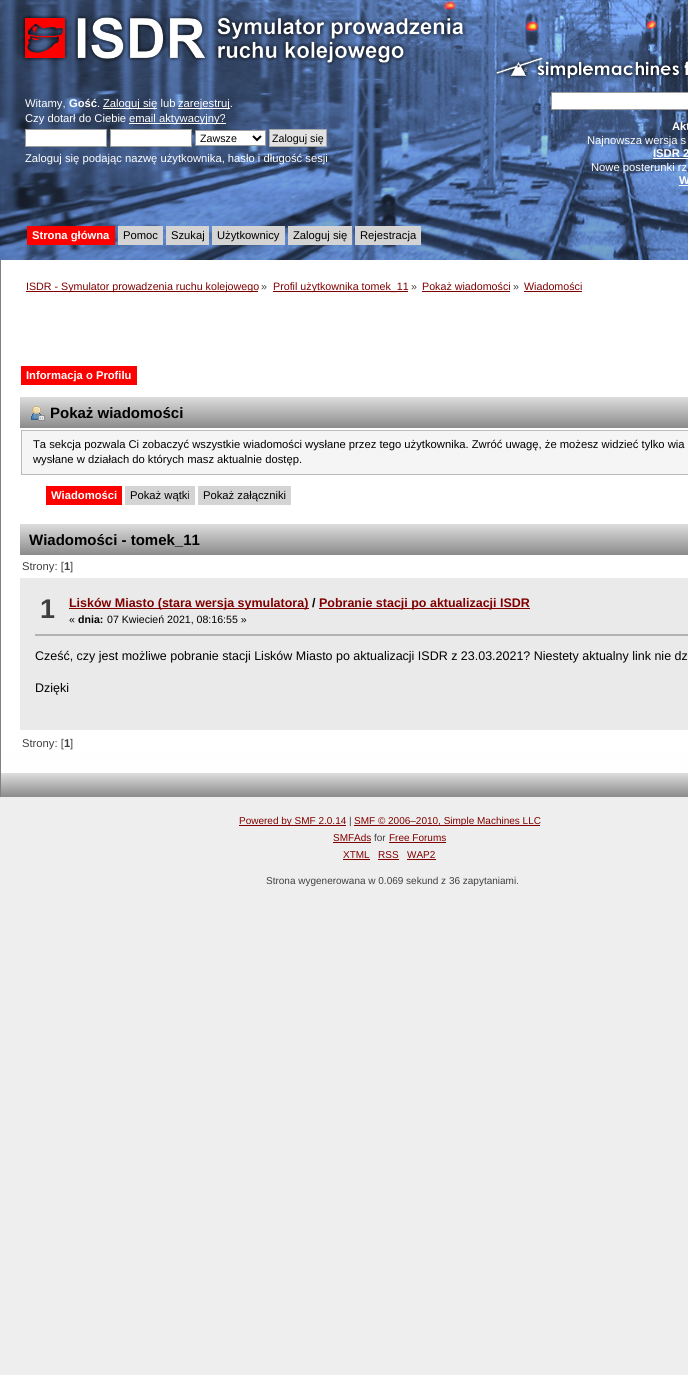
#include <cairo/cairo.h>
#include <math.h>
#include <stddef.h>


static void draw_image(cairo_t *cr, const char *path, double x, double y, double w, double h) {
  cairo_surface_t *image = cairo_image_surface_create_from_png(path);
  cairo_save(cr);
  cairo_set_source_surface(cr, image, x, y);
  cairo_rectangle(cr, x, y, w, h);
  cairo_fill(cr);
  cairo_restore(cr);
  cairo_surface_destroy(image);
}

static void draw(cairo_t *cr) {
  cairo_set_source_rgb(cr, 238 / 255.0, 238 / 255.0, 238 / 255.0);
  cairo_paint(cr);
  draw_image(cr, "images/1.png", 0, 0, 688, 260);
  draw_image(cr, "images/2.png", 22, 14, 444, 52);
  draw_image(cr, "images/3.png", 493, 54, 195, 28);
  cairo_set_source_rgb(cr, 1, 1, 1);
  cairo_rectangle(cr, 103, 108, 54, 1);
  cairo_fill(cr);
  cairo_rectangle(cr, 178, 108, 52, 1);
  cairo_fill(cr);
  cairo_rectangle(cr, 129, 123, 97, 1);
  cairo_fill(cr);
  cairo_rectangle(cr, 25.5, 129.5, 81, 17);
  cairo_fill_preserve(cr);
  cairo_set_source_rgb(cr, 157 / 255.0, 157 / 255.0, 157 / 255.0);
  cairo_set_line_width(cr, 1);
  cairo_stroke(cr);
  cairo_set_source_rgb(cr, 1, 1, 1);
  cairo_rectangle(cr, 110.5, 129.5, 81, 17);
  cairo_fill_preserve(cr);
  cairo_set_source_rgb(cr, 157 / 255.0, 157 / 255.0, 157 / 255.0);
  cairo_stroke(cr);
  cairo_set_source_rgb(cr, 1, 1, 1);
  cairo_rectangle(cr, 195.5, 130.5, 70, 15);
  cairo_fill_preserve(cr);
  cairo_set_source_rgb(cr, 157 / 255.0, 157 / 255.0, 157 / 255.0);
  cairo_stroke(cr);
  cairo_new_path(cr);
  cairo_move_to(cr, 253, 136);
  cairo_line_to(cr, 257, 140);
  cairo_line_to(cr, 261, 136);
  cairo_set_source_rgb(cr, 0, 0, 0);
  cairo_set_line_width(cr, 2);
  cairo_stroke(cr);
  cairo_set_source_rgb(cr, 226 / 255.0, 226 / 255.0, 226 / 255.0);
  cairo_rectangle(cr, 269.5, 129.5, 57, 17);
  cairo_fill_preserve(cr);
  cairo_set_source_rgb(cr, 170 / 255.0, 170 / 255.0, 170 / 255.0);
  cairo_set_line_width(cr, 1);
  cairo_stroke(cr);
  cairo_set_source_rgb(cr, 1, 1, 1);
  cairo_rectangle(cr, 551.5, 92.5, 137, 17);
  cairo_fill_preserve(cr);
  cairo_set_source_rgb(cr, 157 / 255.0, 157 / 255.0, 157 / 255.0);
  cairo_stroke(cr);
  cairo_set_source_rgb(cr, 1, 1, 1);
  cairo_rectangle(cr, 653, 158, 35, 1);
  cairo_fill(cr);
  cairo_rectangle(cr, 679, 185, 9, 1);
  cairo_fill(cr);
  cairo_set_source_rgb(cr, 1, 0, 0);
  cairo_rectangle(cr, 27, 226, 88, 19);
  cairo_fill(cr);
  cairo_set_source_rgb(cr, 212 / 255.0, 212 / 255.0, 212 / 255.0);
  cairo_rectangle(cr, 118, 226, 45, 19);
  cairo_fill(cr);
  cairo_rectangle(cr, 166, 226, 43, 19);
  cairo_fill(cr);
  cairo_rectangle(cr, 212, 226, 73, 19);
  cairo_fill(cr);
  cairo_rectangle(cr, 288, 226, 64, 19);
  cairo_fill(cr);
  cairo_rectangle(cr, 355, 226, 66, 19);
  cairo_fill(cr);
  cairo_set_source_rgb(cr, 1, 1, 1);
  cairo_rectangle(cr, 1, 260, 687, 493);
  cairo_fill(cr);
  cairo_set_source_rgb(cr, 128 / 255.0, 128 / 255.0, 128 / 255.0);
  cairo_rectangle(cr, 0, 260, 1, 493);
  cairo_fill(cr);
  cairo_set_source_rgb(cr, 128 / 255.0, 0, 0);
  cairo_rectangle(cr, 26, 291, 232, 1);
  cairo_fill(cr);
  cairo_rectangle(cr, 273, 291, 135, 1);
  cairo_fill(cr);
  cairo_rectangle(cr, 422, 291, 88, 1);
  cairo_fill(cr);
  cairo_rectangle(cr, 524, 291, 58, 1);
  cairo_fill(cr);
  cairo_set_source_rgb(cr, 1, 0, 0);
  cairo_rectangle(cr, 21, 366, 116, 19);
  cairo_fill(cr);
  draw_image(cr, "images/4.png", 20, 397, 668, 31);
  draw_image(cr, "images/5.png", 31, 406, 14, 15);
  cairo_set_source_rgb(cr, 245 / 255.0, 245 / 255.0, 245 / 255.0);
  cairo_rectangle(cr, 21.5, 430.5, 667, 44);
  cairo_fill_preserve(cr);
  cairo_set_source_rgb(cr, 187 / 255.0, 187 / 255.0, 187 / 255.0);
  cairo_stroke(cr);
  cairo_set_source_rgb(cr, 1, 0, 0);
  cairo_rectangle(cr, 46, 486, 76, 19);
  cairo_fill(cr);
  cairo_set_source_rgb(cr, 212 / 255.0, 212 / 255.0, 212 / 255.0);
  cairo_rectangle(cr, 125, 486, 70, 19);
  cairo_fill(cr);
  cairo_rectangle(cr, 198, 486, 93, 19);
  cairo_fill(cr);
  draw_image(cr, "images/4.png", 20, 524, 668, 31);
  cairo_set_source_rgb(cr, 234 / 255.0, 234 / 255.0, 234 / 255.0);
  cairo_rectangle(cr, 20, 578, 668, 152);
  cairo_fill(cr);
  cairo_set_source_rgb(cr, 128 / 255.0, 0, 0);
  cairo_rectangle(cr, 69, 608, 240, 1);
  cairo_fill(cr);
  cairo_rectangle(cr, 319, 608, 211, 1);
  cairo_fill(cr);
  cairo_set_source_rgb(cr, 179 / 255.0, 179 / 255.0, 179 / 255.0);
  cairo_rectangle(cr, 35, 634, 653, 2);
  cairo_fill(cr);
  draw_image(cr, "images/6.png", 0, 753, 688, 44);
  cairo_set_source_rgb(cr, 128 / 255.0, 0, 0);
  cairo_rectangle(cr, 239, 825, 107, 1);
  cairo_fill(cr);
  cairo_rectangle(cr, 354, 825, 186, 1);
  cairo_fill(cr);
  cairo_rectangle(cr, 333, 842, 38, 1);
  cairo_fill(cr);
  cairo_rectangle(cr, 389, 842, 57, 1);
  cairo_fill(cr);
  cairo_rectangle(cr, 343, 859, 27, 1);
  cairo_fill(cr);
  cairo_rectangle(cr, 378, 859, 21, 1);
  cairo_fill(cr);
  cairo_rectangle(cr, 407, 859, 29, 1);
  cairo_fill(cr);
  cairo_select_font_face(cr, "Liberation Sans", CAIRO_FONT_SLANT_NORMAL, CAIRO_FONT_WEIGHT_NORMAL);
  cairo_set_font_size(cr, 11.23);
  cairo_set_source_rgb(cr, 1, 1, 1);
  cairo_move_to(cr, 25, 107);
  cairo_show_text(cr, "Witamy,");
  cairo_select_font_face(cr, "Liberation Sans", CAIRO_FONT_SLANT_NORMAL, CAIRO_FONT_WEIGHT_BOLD);
  cairo_move_to(cr, 69, 107);
  cairo_show_text(cr, "Gość");
  cairo_select_font_face(cr, "Liberation Sans", CAIRO_FONT_SLANT_NORMAL, CAIRO_FONT_WEIGHT_NORMAL);
  cairo_move_to(cr, 97, 107);
  cairo_show_text(cr, ".");
  cairo_move_to(cr, 103, 107);
  cairo_show_text(cr, "Zaloguj się lub");
  cairo_move_to(cr, 178, 107);
  cairo_show_text(cr, "zarejestruj.");
  cairo_move_to(cr, 25, 122);
  cairo_show_text(cr, "Czy dotarł do Ciebie");
  cairo_move_to(cr, 129, 122);
  cairo_show_text(cr, "email aktywacyjny?");
  cairo_set_font_size(cr, 10.7);
  cairo_set_source_rgb(cr, 0, 0, 0);
  cairo_move_to(cr, 200, 142);
  cairo_show_text(cr, "Zawsze");
  cairo_move_to(cr, 272, 142);
  cairo_show_text(cr, "Zaloguj się");
  cairo_set_font_size(cr, 11.23);
  cairo_set_source_rgb(cr, 1, 1, 1);
  cairo_move_to(cr, 25, 162);
  cairo_show_text(cr, "Zaloguj się podając nazwę użytkownika, hasło i długość sesji");
  cairo_select_font_face(cr, "Liberation Sans", CAIRO_FONT_SLANT_NORMAL, CAIRO_FONT_WEIGHT_BOLD);
  cairo_move_to(cr, 672, 130);
  cairo_show_text(cr, "Akt");
  cairo_select_font_face(cr, "Liberation Sans", CAIRO_FONT_SLANT_NORMAL, CAIRO_FONT_WEIGHT_NORMAL);
  cairo_move_to(cr, 587, 144);
  cairo_show_text(cr, "Najnowsza wersja s");
  cairo_select_font_face(cr, "Liberation Sans", CAIRO_FONT_SLANT_NORMAL, CAIRO_FONT_WEIGHT_BOLD);
  cairo_move_to(cr, 653, 157);
  cairo_show_text(cr, "ISDR 2");
  cairo_select_font_face(cr, "Liberation Sans", CAIRO_FONT_SLANT_NORMAL, CAIRO_FONT_WEIGHT_NORMAL);
  cairo_move_to(cr, 591, 171);
  cairo_show_text(cr, "Nowe posterunki rz");
  cairo_select_font_face(cr, "Liberation Sans", CAIRO_FONT_SLANT_NORMAL, CAIRO_FONT_WEIGHT_BOLD);
  cairo_move_to(cr, 679, 184);
  cairo_show_text(cr, "W");
  cairo_move_to(cr, 32, 239);
  cairo_show_text(cr, "Strona główna");
  cairo_select_font_face(cr, "Liberation Sans", CAIRO_FONT_SLANT_NORMAL, CAIRO_FONT_WEIGHT_NORMAL);
  cairo_set_source_rgb(cr, 0, 0, 0);
  cairo_move_to(cr, 123, 239);
  cairo_show_text(cr, "Pomoc");
  cairo_move_to(cr, 171, 239);
  cairo_show_text(cr, "Szukaj");
  cairo_move_to(cr, 217, 239);
  cairo_show_text(cr, "Użytkownicy");
  cairo_move_to(cr, 293, 239);
  cairo_show_text(cr, "Zaloguj się");
  cairo_move_to(cr, 360, 239);
  cairo_show_text(cr, "Rejestracja");
  cairo_set_font_size(cr, 10.7);
  cairo_set_source_rgb(cr, 128 / 255.0, 0, 0);
  cairo_move_to(cr, 26, 290);
  cairo_show_text(cr, "ISDR - Symulator prowadzenia ruchu kolejowego");
  cairo_set_source_rgb(cr, 63 / 255.0, 63 / 255.0, 63 / 255.0);
  cairo_move_to(cr, 261, 290);
  cairo_show_text(cr, "»");
  cairo_set_source_rgb(cr, 128 / 255.0, 0, 0);
  cairo_move_to(cr, 273, 290);
  cairo_show_text(cr, "Profil użytkownika tomek_11");
  cairo_set_source_rgb(cr, 63 / 255.0, 63 / 255.0, 63 / 255.0);
  cairo_move_to(cr, 411, 290);
  cairo_show_text(cr, "»");
  cairo_set_source_rgb(cr, 128 / 255.0, 0, 0);
  cairo_move_to(cr, 422, 290);
  cairo_show_text(cr, "Pokaż wiadomości");
  cairo_set_source_rgb(cr, 63 / 255.0, 63 / 255.0, 63 / 255.0);
  cairo_move_to(cr, 513, 290);
  cairo_show_text(cr, "»");
  cairo_set_source_rgb(cr, 128 / 255.0, 0, 0);
  cairo_move_to(cr, 524, 290);
  cairo_show_text(cr, "Wiadomości");
  cairo_select_font_face(cr, "Liberation Sans", CAIRO_FONT_SLANT_NORMAL, CAIRO_FONT_WEIGHT_BOLD);
  cairo_set_font_size(cr, 11.23);
  cairo_set_source_rgb(cr, 1, 1, 1);
  cairo_move_to(cr, 26, 379);
  cairo_show_text(cr, "Informacja o Profilu");
  cairo_set_font_size(cr, 15);
  cairo_set_source_rgb(cr, 0, 0, 0);
  cairo_move_to(cr, 50, 418);
  cairo_show_text(cr, "Pokaż wiadomości");
  cairo_select_font_face(cr, "Liberation Sans", CAIRO_FONT_SLANT_NORMAL, CAIRO_FONT_WEIGHT_NORMAL);
  cairo_set_font_size(cr, 11.23);
  cairo_move_to(cr, 33, 448);
  cairo_show_text(cr, "Ta sekcja pozwala Ci zobaczyć wszystkie wiadomości wysłane przez tego użytkownika. Zwróć uwagę, że możesz widzieć tylko wia");
  cairo_move_to(cr, 33, 463);
  cairo_show_text(cr, "wysłane w działach do których masz aktualnie dostęp.");
  cairo_select_font_face(cr, "Liberation Sans", CAIRO_FONT_SLANT_NORMAL, CAIRO_FONT_WEIGHT_BOLD);
  cairo_set_source_rgb(cr, 1, 1, 1);
  cairo_move_to(cr, 51, 499);
  cairo_show_text(cr, "Wiadomości");
  cairo_select_font_face(cr, "Liberation Sans", CAIRO_FONT_SLANT_NORMAL, CAIRO_FONT_WEIGHT_NORMAL);
  cairo_set_source_rgb(cr, 0, 0, 0);
  cairo_move_to(cr, 130, 499);
  cairo_show_text(cr, "Pokaż wątki");
  cairo_move_to(cr, 203, 499);
  cairo_show_text(cr, "Pokaż załączniki");
  cairo_select_font_face(cr, "Liberation Sans", CAIRO_FONT_SLANT_NORMAL, CAIRO_FONT_WEIGHT_BOLD);
  cairo_set_font_size(cr, 15);
  cairo_move_to(cr, 29, 545);
  cairo_show_text(cr, "Wiadomości - tomek_11");
  cairo_select_font_face(cr, "Liberation Sans", CAIRO_FONT_SLANT_NORMAL, CAIRO_FONT_WEIGHT_NORMAL);
  cairo_set_font_size(cr, 11.23);
  cairo_set_source_rgb(cr, 63 / 255.0, 63 / 255.0, 63 / 255.0);
  cairo_move_to(cr, 22, 570);
  cairo_show_text(cr, "Strony: [");
  cairo_select_font_face(cr, "Liberation Sans", CAIRO_FONT_SLANT_NORMAL, CAIRO_FONT_WEIGHT_BOLD);
  cairo_move_to(cr, 64, 570);
  cairo_show_text(cr, "1");
  cairo_select_font_face(cr, "Liberation Sans", CAIRO_FONT_SLANT_NORMAL, CAIRO_FONT_WEIGHT_NORMAL);
  cairo_move_to(cr, 70, 570);
  cairo_show_text(cr, "]");
  cairo_select_font_face(cr, "Liberation Sans", CAIRO_FONT_SLANT_NORMAL, CAIRO_FONT_WEIGHT_BOLD);
  cairo_set_font_size(cr, 27);
  cairo_move_to(cr, 40, 618);
  cairo_show_text(cr, "1");
  cairo_set_font_size(cr, 12.48);
  cairo_set_source_rgb(cr, 128 / 255.0, 0, 0);
  cairo_move_to(cr, 69, 607);
  cairo_show_text(cr, "Lisków Miasto (stara wersja symulatora)");
  cairo_set_source_rgb(cr, 0, 0, 0);
  cairo_move_to(cr, 312, 607);
  cairo_show_text(cr, "/");
  cairo_set_source_rgb(cr, 128 / 255.0, 0, 0);
  cairo_move_to(cr, 319, 607);
  cairo_show_text(cr, "Pobranie stacji po aktualizacji ISDR");
  cairo_select_font_face(cr, "Liberation Sans", CAIRO_FONT_SLANT_NORMAL, CAIRO_FONT_WEIGHT_NORMAL);
  cairo_set_font_size(cr, 10.6);
  cairo_set_source_rgb(cr, 0, 0, 0);
  cairo_move_to(cr, 69, 623);
  cairo_show_text(cr, "«");
  cairo_select_font_face(cr, "Liberation Sans", CAIRO_FONT_SLANT_NORMAL, CAIRO_FONT_WEIGHT_BOLD);
  cairo_move_to(cr, 78, 623);
  cairo_show_text(cr, "dnia:");
  cairo_select_font_face(cr, "Liberation Sans", CAIRO_FONT_SLANT_NORMAL, CAIRO_FONT_WEIGHT_NORMAL);
  cairo_move_to(cr, 107, 623);
  cairo_show_text(cr, "07 Kwiecień 2021, 08:16:55 »");
  cairo_set_font_size(cr, 12.48);
  cairo_move_to(cr, 35, 660);
  cairo_show_text(cr, "Cześć, czy jest możliwe pobranie stacji Lisków Miasto po aktualizacji ISDR z 23.03.2021? Niestety aktualny link nie dz");
  cairo_move_to(cr, 35, 692);
  cairo_show_text(cr, "Dzięki");
  cairo_set_font_size(cr, 11.23);
  cairo_set_source_rgb(cr, 63 / 255.0, 63 / 255.0, 63 / 255.0);
  cairo_move_to(cr, 22, 747);
  cairo_show_text(cr, "Strony: [");
  cairo_select_font_face(cr, "Liberation Sans", CAIRO_FONT_SLANT_NORMAL, CAIRO_FONT_WEIGHT_BOLD);
  cairo_move_to(cr, 64, 747);
  cairo_show_text(cr, "1");
  cairo_select_font_face(cr, "Liberation Sans", CAIRO_FONT_SLANT_NORMAL, CAIRO_FONT_WEIGHT_NORMAL);
  cairo_move_to(cr, 70, 747);
  cairo_show_text(cr, "]");
  cairo_set_font_size(cr, 10);
  cairo_set_source_rgb(cr, 128 / 255.0, 0, 0);
  cairo_move_to(cr, 239, 824);
  cairo_show_text(cr, "Powered by SMF 2.0.14");
  cairo_set_source_rgb(cr, 63 / 255.0, 63 / 255.0, 63 / 255.0);
  cairo_move_to(cr, 349, 824);
  cairo_show_text(cr, "|");
  cairo_set_source_rgb(cr, 128 / 255.0, 0, 0);
  cairo_move_to(cr, 354, 824);
  cairo_show_text(cr, "SMF © 2006–2010, Simple Machines LLC");
  cairo_move_to(cr, 333, 841);
  cairo_show_text(cr, "SMFAds");
  cairo_set_source_rgb(cr, 63 / 255.0, 63 / 255.0, 63 / 255.0);
  cairo_move_to(cr, 374, 841);
  cairo_show_text(cr, "for");
  cairo_set_source_rgb(cr, 128 / 255.0, 0, 0);
  cairo_move_to(cr, 389, 841);
  cairo_show_text(cr, "Free Forums");
  cairo_move_to(cr, 343, 858);
  cairo_show_text(cr, "XTML");
  cairo_move_to(cr, 378, 858);
  cairo_show_text(cr, "RSS");
  cairo_move_to(cr, 407, 858);
  cairo_show_text(cr, "WAP2");
  cairo_set_source_rgb(cr, 63 / 255.0, 63 / 255.0, 63 / 255.0);
  cairo_move_to(cr, 266, 884);
  cairo_show_text(cr, "Strona wygenerowana w 0.069 sekund z 36 zapytaniami.");
}

int main(void) {
  cairo_surface_t *surface = cairo_image_surface_create(CAIRO_FORMAT_RGB24, 688, 1375);
  cairo_t *cr = cairo_create(surface);
  cairo_font_options_t *options = cairo_font_options_create();
  cairo_font_options_set_hint_metrics(options, CAIRO_HINT_METRICS_OFF);
  cairo_font_options_set_hint_style(options, CAIRO_HINT_STYLE_NONE);
  cairo_set_font_options(cr, options);
  cairo_set_miter_limit(cr, 4);
  draw(cr);
  cairo_surface_write_to_png(surface, "out.png");
  cairo_font_options_destroy(options);
  cairo_destroy(cr);
  cairo_surface_destroy(surface);
  return 0;
}
